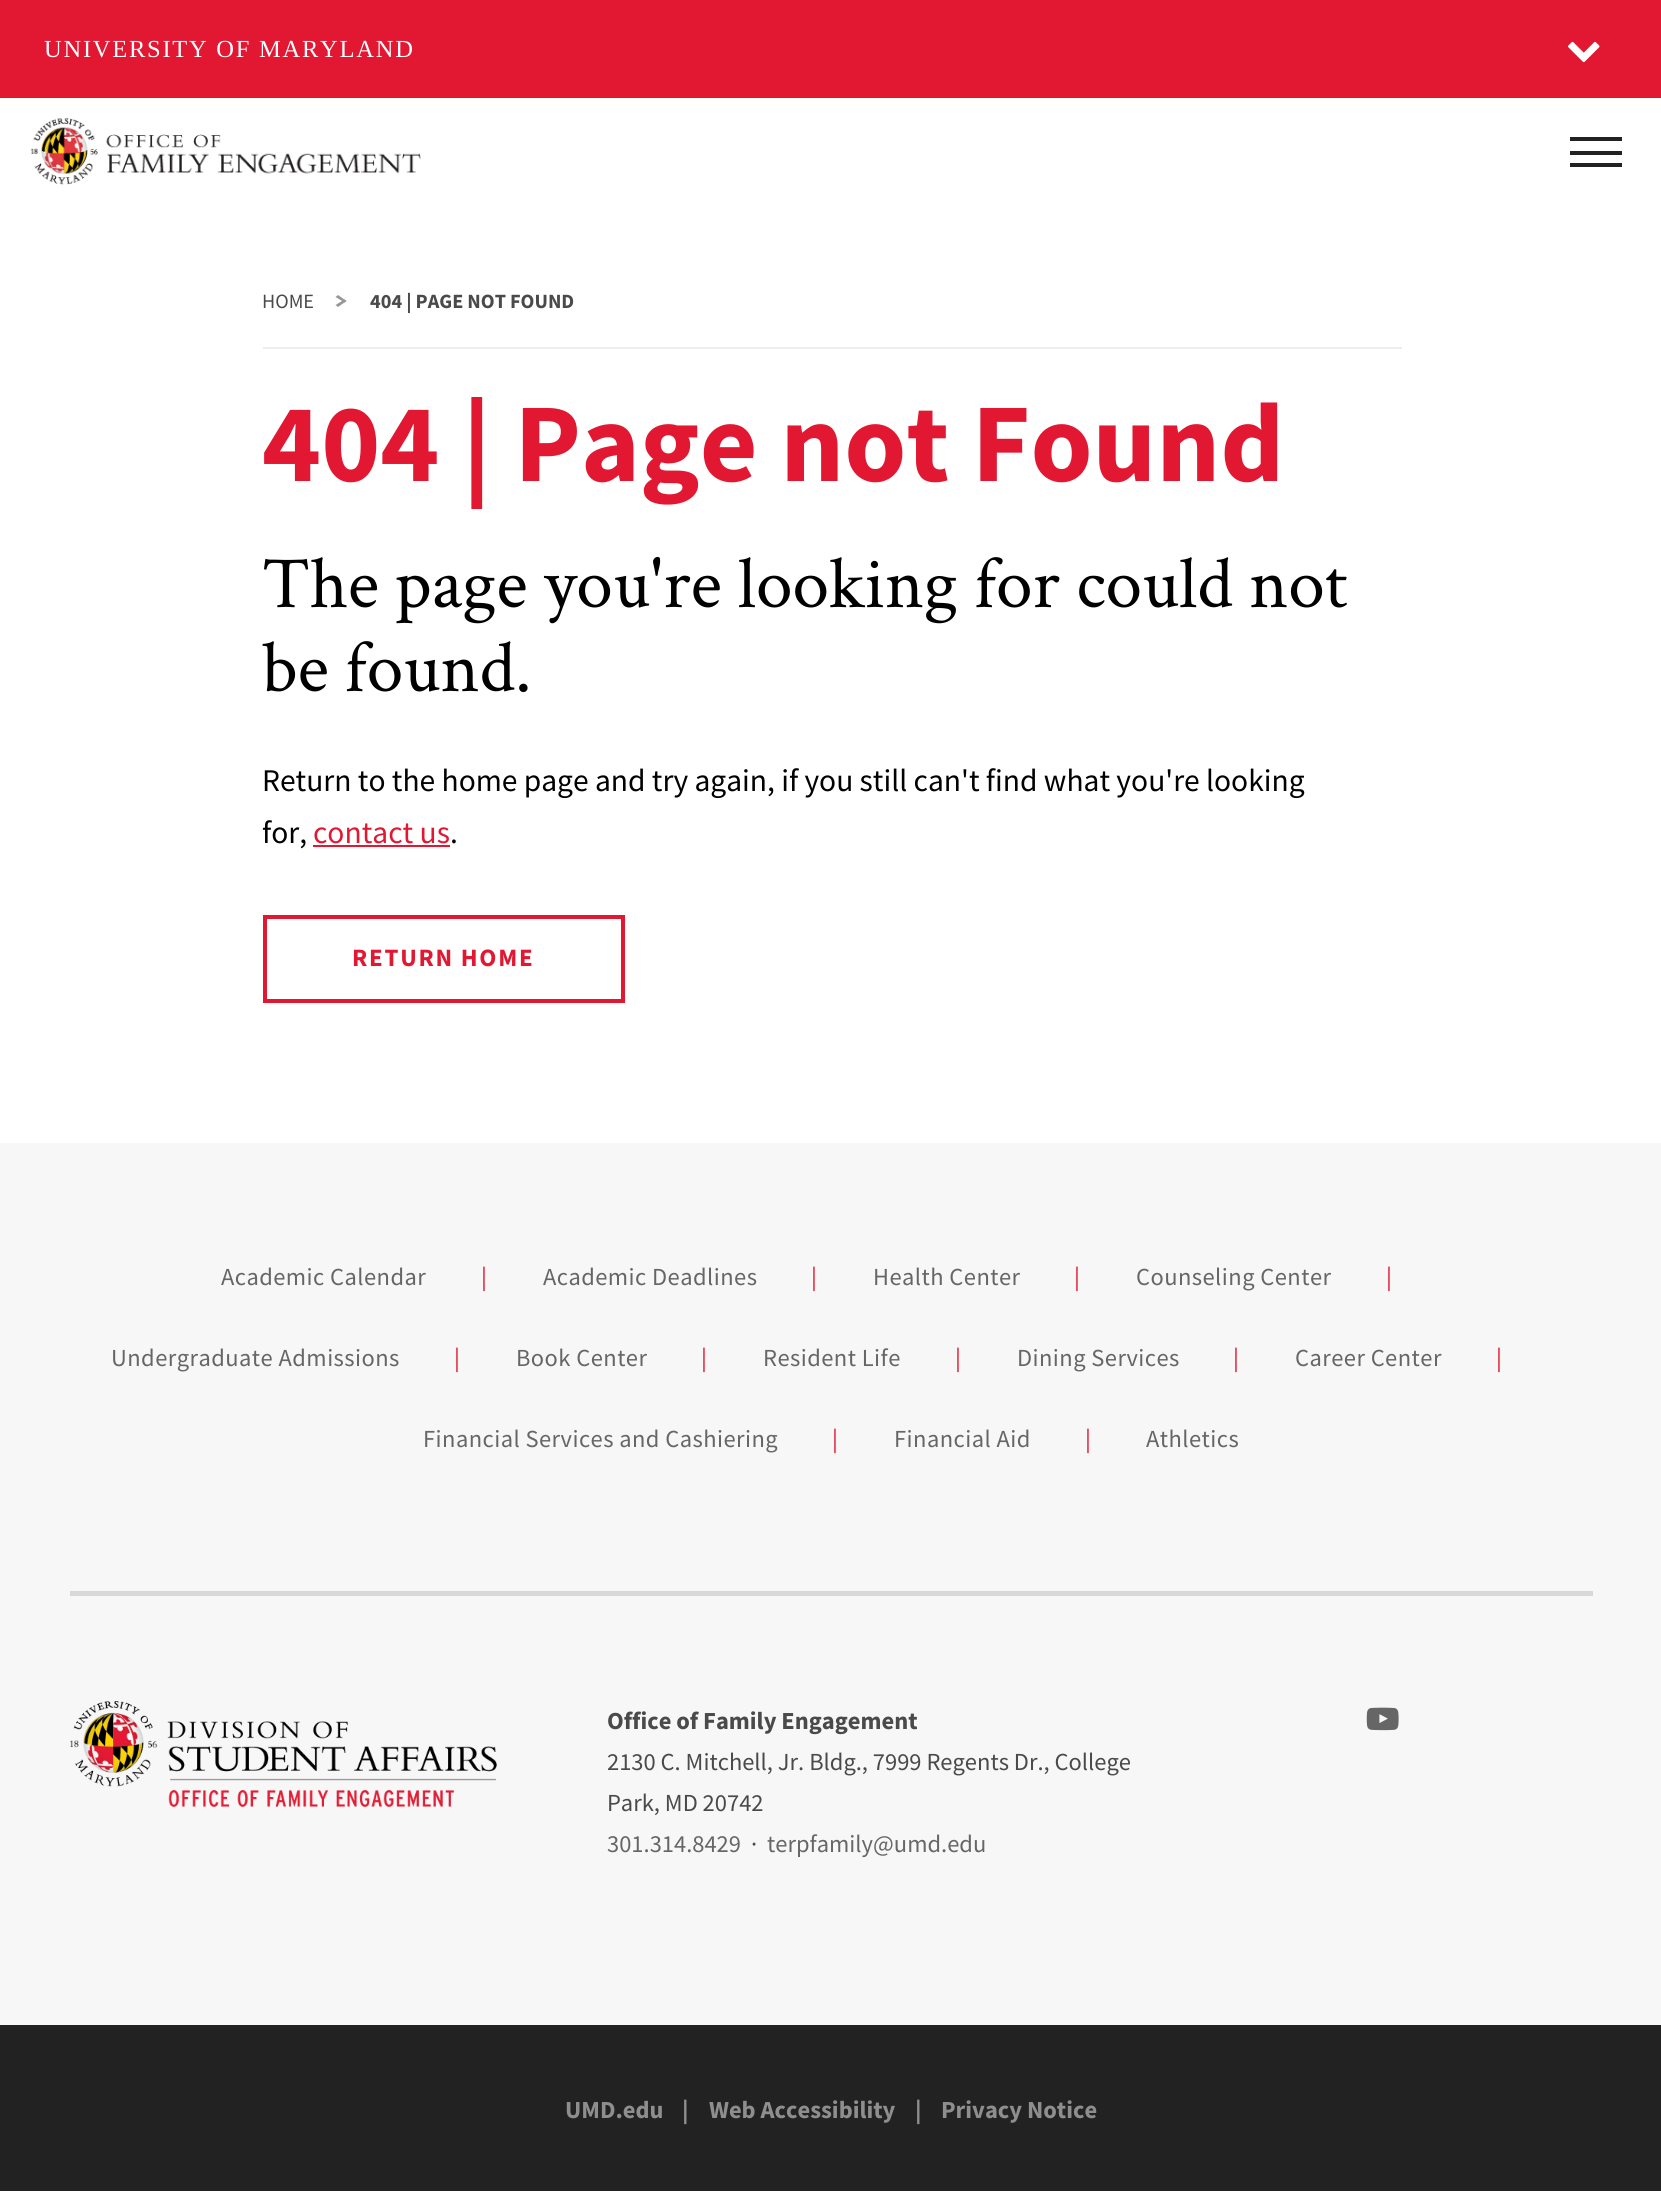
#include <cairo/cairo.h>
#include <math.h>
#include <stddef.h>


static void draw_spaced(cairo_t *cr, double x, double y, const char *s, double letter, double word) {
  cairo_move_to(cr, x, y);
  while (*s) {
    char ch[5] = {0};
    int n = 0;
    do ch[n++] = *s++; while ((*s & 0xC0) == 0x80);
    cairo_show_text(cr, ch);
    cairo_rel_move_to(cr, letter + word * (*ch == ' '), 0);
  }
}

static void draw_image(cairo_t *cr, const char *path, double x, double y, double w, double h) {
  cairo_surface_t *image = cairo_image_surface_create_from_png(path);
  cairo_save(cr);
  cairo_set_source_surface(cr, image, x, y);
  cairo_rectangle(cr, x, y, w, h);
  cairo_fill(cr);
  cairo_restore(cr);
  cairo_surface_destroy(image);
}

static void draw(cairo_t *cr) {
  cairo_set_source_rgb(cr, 1, 1, 1);
  cairo_paint(cr);
  cairo_set_source_rgb(cr, 226 / 255.0, 24 / 255.0, 51 / 255.0);
  cairo_rectangle(cr, 0, 0, 1661, 98);
  cairo_fill(cr);
  draw_image(cr, "images/1.png", 1568, 41, 32, 22);
  draw_image(cr, "images/2.png", 30, 118, 391, 67);
  cairo_set_source_rgb(cr, 34 / 255.0, 34 / 255.0, 34 / 255.0);
  cairo_rectangle(cr, 1570, 137, 52, 4);
  cairo_fill(cr);
  cairo_rectangle(cr, 1570, 151, 52, 4);
  cairo_fill(cr);
  cairo_rectangle(cr, 1570, 163, 52, 4);
  cairo_fill(cr);
  cairo_set_source_rgb(cr, 237 / 255.0, 237 / 255.0, 237 / 255.0);
  cairo_rectangle(cr, 263, 347, 1139, 2);
  cairo_fill(cr);
  cairo_set_source_rgb(cr, 151 / 255.0, 151 / 255.0, 151 / 255.0);
  cairo_new_path(cr);
  cairo_move_to(cr, 335.5, 297);
  cairo_line_to(cr, 338, 295);
  cairo_line_to(cr, 346.5, 301);
  cairo_line_to(cr, 344.5, 302.5);
  cairo_close_path(cr);
  cairo_fill(cr);
  cairo_new_path(cr);
  cairo_move_to(cr, 335.5, 305);
  cairo_line_to(cr, 344.5, 299.5);
  cairo_line_to(cr, 346.5, 301);
  cairo_line_to(cr, 338, 307);
  cairo_close_path(cr);
  cairo_fill(cr);
  cairo_set_source_rgb(cr, 226 / 255.0, 24 / 255.0, 51 / 255.0);
  cairo_rectangle(cr, 313, 845, 137, 2);
  cairo_fill(cr);
  cairo_rectangle(cr, 265, 917, 358, 84);
  cairo_set_line_width(cr, 4);
  cairo_stroke(cr);
  cairo_set_source_rgb(cr, 247 / 255.0, 247 / 255.0, 247 / 255.0);
  cairo_rectangle(cr, 0, 1143, 1661, 882);
  cairo_fill(cr);
  cairo_set_source_rgb(cr, 216 / 255.0, 216 / 255.0, 216 / 255.0);
  cairo_rectangle(cr, 70, 1591, 1523, 5);
  cairo_fill(cr);
  draw_image(cr, "images/3.png", 70, 1701, 427, 106);
  draw_image(cr, "images/4.png", 1366, 1707, 33, 24);
  cairo_set_source_rgb(cr, 34 / 255.0, 34 / 255.0, 34 / 255.0);
  cairo_rectangle(cr, 0, 2025, 1661, 166);
  cairo_fill(cr);
  cairo_select_font_face(cr, "Liberation Serif", CAIRO_FONT_SLANT_NORMAL, CAIRO_FONT_WEIGHT_NORMAL);
  cairo_set_font_size(cr, 24.5);
  cairo_set_source_rgb(cr, 1, 1, 1);
  draw_spaced(cr, 44, 57, "UNIVERSITY OF MARYLAND", 1.75, 0);
  cairo_select_font_face(cr, "Source Sans Pro", CAIRO_FONT_SLANT_NORMAL, CAIRO_FONT_WEIGHT_NORMAL);
  cairo_set_font_size(cr, 20.25);
  cairo_set_source_rgb(cr, 74 / 255.0, 74 / 255.0, 74 / 255.0);
  cairo_move_to(cr, 262, 308);
  cairo_show_text(cr, "HOME");
  cairo_select_font_face(cr, "Source Sans Pro", CAIRO_FONT_SLANT_NORMAL, CAIRO_FONT_WEIGHT_BOLD);
  cairo_move_to(cr, 370, 308);
  cairo_show_text(cr, "404 | PAGE NOT FOUND");
  cairo_set_font_size(cr, 112);
  cairo_set_source_rgb(cr, 226 / 255.0, 24 / 255.0, 51 / 255.0);
  cairo_move_to(cr, 262, 481);
  cairo_show_text(cr, "404 | Page not Found");
  cairo_select_font_face(cr, "Crimson Text", CAIRO_FONT_SLANT_NORMAL, CAIRO_FONT_WEIGHT_NORMAL);
  cairo_set_font_size(cr, 73.5);
  cairo_set_source_rgb(cr, 0, 0, 0);
  cairo_move_to(cr, 262, 607);
  cairo_show_text(cr, "The page you're looking for could not");
  cairo_move_to(cr, 262, 691);
  cairo_show_text(cr, "be found.");
  cairo_select_font_face(cr, "Source Sans Pro", CAIRO_FONT_SLANT_NORMAL, CAIRO_FONT_WEIGHT_NORMAL);
  cairo_set_font_size(cr, 31.5);
  cairo_move_to(cr, 262, 791);
  cairo_show_text(cr, "Return to the home page and try again, if you still can't find what you're looking");
  cairo_move_to(cr, 262, 843);
  cairo_show_text(cr, "for,");
  cairo_set_source_rgb(cr, 226 / 255.0, 24 / 255.0, 51 / 255.0);
  cairo_move_to(cr, 313, 843);
  cairo_show_text(cr, "contact us");
  cairo_set_source_rgb(cr, 0, 0, 0);
  cairo_move_to(cr, 450, 843);
  cairo_show_text(cr, ".");
  cairo_select_font_face(cr, "Source Sans Pro", CAIRO_FONT_SLANT_NORMAL, CAIRO_FONT_WEIGHT_BOLD);
  cairo_set_font_size(cr, 25);
  cairo_set_source_rgb(cr, 226 / 255.0, 24 / 255.0, 51 / 255.0);
  draw_spaced(cr, 352, 966, "RETURN HOME", 1.75, 0);
  cairo_select_font_face(cr, "Source Sans Pro", CAIRO_FONT_SLANT_NORMAL, CAIRO_FONT_WEIGHT_NORMAL);
  cairo_set_font_size(cr, 24.5);
  cairo_set_source_rgb(cr, 102 / 255.0, 102 / 255.0, 102 / 255.0);
  draw_spaced(cr, 221, 1285, "Academic Calendar", 0.45, 0);
  cairo_set_source_rgb(cr, 226 / 255.0, 24 / 255.0, 51 / 255.0);
  draw_spaced(cr, 481, 1285, "|", 0.45, 0);
  cairo_set_source_rgb(cr, 102 / 255.0, 102 / 255.0, 102 / 255.0);
  draw_spaced(cr, 543, 1285, "Academic Deadlines", 0.45, 0);
  cairo_set_source_rgb(cr, 226 / 255.0, 24 / 255.0, 51 / 255.0);
  draw_spaced(cr, 811, 1285, "|", 0.45, 0);
  cairo_set_source_rgb(cr, 102 / 255.0, 102 / 255.0, 102 / 255.0);
  draw_spaced(cr, 873, 1285, "Health Center", 0.45, 0);
  cairo_set_source_rgb(cr, 226 / 255.0, 24 / 255.0, 51 / 255.0);
  draw_spaced(cr, 1074, 1285, "|", 0.45, 0);
  cairo_set_source_rgb(cr, 102 / 255.0, 102 / 255.0, 102 / 255.0);
  draw_spaced(cr, 1136, 1285, "Counseling Center", 0.45, 0);
  cairo_set_source_rgb(cr, 226 / 255.0, 24 / 255.0, 51 / 255.0);
  draw_spaced(cr, 1386, 1285, "|", 0.45, 0);
  cairo_set_source_rgb(cr, 102 / 255.0, 102 / 255.0, 102 / 255.0);
  draw_spaced(cr, 111, 1366, "Undergraduate Admissions", 0.45, 0);
  cairo_set_source_rgb(cr, 226 / 255.0, 24 / 255.0, 51 / 255.0);
  draw_spaced(cr, 454, 1366, "|", 0.45, 0);
  cairo_set_source_rgb(cr, 102 / 255.0, 102 / 255.0, 102 / 255.0);
  draw_spaced(cr, 516, 1366, "Book Center", 0.45, 0);
  cairo_set_source_rgb(cr, 226 / 255.0, 24 / 255.0, 51 / 255.0);
  draw_spaced(cr, 701, 1366, "|", 0.45, 0);
  cairo_set_source_rgb(cr, 102 / 255.0, 102 / 255.0, 102 / 255.0);
  draw_spaced(cr, 763, 1366, "Resident Life", 0.45, 0);
  cairo_set_source_rgb(cr, 226 / 255.0, 24 / 255.0, 51 / 255.0);
  draw_spaced(cr, 955, 1366, "|", 0.45, 0);
  cairo_set_source_rgb(cr, 102 / 255.0, 102 / 255.0, 102 / 255.0);
  draw_spaced(cr, 1017, 1366, "Dining Services", 0.45, 0);
  cairo_set_source_rgb(cr, 226 / 255.0, 24 / 255.0, 51 / 255.0);
  draw_spaced(cr, 1233, 1366, "|", 0.45, 0);
  cairo_set_source_rgb(cr, 102 / 255.0, 102 / 255.0, 102 / 255.0);
  draw_spaced(cr, 1295, 1366, "Career Center", 0.45, 0);
  cairo_set_source_rgb(cr, 226 / 255.0, 24 / 255.0, 51 / 255.0);
  draw_spaced(cr, 1496, 1366, "|", 0.45, 0);
  cairo_set_source_rgb(cr, 102 / 255.0, 102 / 255.0, 102 / 255.0);
  draw_spaced(cr, 423, 1447, "Financial Services and Cashiering", 0.45, 0);
  cairo_set_source_rgb(cr, 226 / 255.0, 24 / 255.0, 51 / 255.0);
  draw_spaced(cr, 832, 1447, "|", 0.45, 0);
  cairo_set_source_rgb(cr, 102 / 255.0, 102 / 255.0, 102 / 255.0);
  draw_spaced(cr, 894, 1447, "Financial Aid", 0.45, 0);
  cairo_set_source_rgb(cr, 226 / 255.0, 24 / 255.0, 51 / 255.0);
  draw_spaced(cr, 1085, 1447, "|", 0.45, 0);
  cairo_set_source_rgb(cr, 102 / 255.0, 102 / 255.0, 102 / 255.0);
  draw_spaced(cr, 1146, 1447, "Athletics", 0.45, 0);
  cairo_select_font_face(cr, "Source Sans Pro", CAIRO_FONT_SLANT_NORMAL, CAIRO_FONT_WEIGHT_BOLD);
  cairo_set_source_rgb(cr, 74 / 255.0, 74 / 255.0, 74 / 255.0);
  cairo_move_to(cr, 607, 1729);
  cairo_show_text(cr, "Office of Family Engagement");
  cairo_select_font_face(cr, "Source Sans Pro", CAIRO_FONT_SLANT_NORMAL, CAIRO_FONT_WEIGHT_NORMAL);
  cairo_move_to(cr, 607, 1770);
  cairo_show_text(cr, "2130 C. Mitchell, Jr. Bldg., 7999 Regents Dr., College");
  cairo_move_to(cr, 607, 1811);
  cairo_show_text(cr, "Park, MD 20742");
  cairo_set_source_rgb(cr, 102 / 255.0, 102 / 255.0, 102 / 255.0);
  cairo_move_to(cr, 607, 1852);
  cairo_show_text(cr, "301.314.8429");
  cairo_set_source_rgb(cr, 74 / 255.0, 74 / 255.0, 74 / 255.0);
  cairo_move_to(cr, 751, 1852);
  cairo_show_text(cr, "·");
  cairo_set_source_rgb(cr, 102 / 255.0, 102 / 255.0, 102 / 255.0);
  cairo_move_to(cr, 767, 1852);
  cairo_show_text(cr, "terpfamily@umd.edu");
  cairo_select_font_face(cr, "Source Sans Pro", CAIRO_FONT_SLANT_NORMAL, CAIRO_FONT_WEIGHT_BOLD);
  cairo_set_source_rgb(cr, 142 / 255.0, 142 / 255.0, 142 / 255.0);
  cairo_move_to(cr, 565, 2118);
  cairo_show_text(cr, "UMD.edu");
  cairo_move_to(cr, 682, 2118);
  cairo_show_text(cr, "|");
  cairo_move_to(cr, 709, 2118);
  cairo_show_text(cr, "Web Accessibility");
  cairo_move_to(cr, 915, 2118);
  cairo_show_text(cr, "|");
  cairo_move_to(cr, 941, 2118);
  cairo_show_text(cr, "Privacy Notice");
}

int main(void) {
  cairo_surface_t *surface = cairo_image_surface_create(CAIRO_FORMAT_RGB24, 1661, 2203);
  cairo_t *cr = cairo_create(surface);
  cairo_font_options_t *options = cairo_font_options_create();
  cairo_font_options_set_hint_metrics(options, CAIRO_HINT_METRICS_OFF);
  cairo_font_options_set_hint_style(options, CAIRO_HINT_STYLE_NONE);
  cairo_set_font_options(cr, options);
  cairo_set_miter_limit(cr, 4);
  draw(cr);
  cairo_surface_write_to_png(surface, "out.png");
  cairo_font_options_destroy(options);
  cairo_destroy(cr);
  cairo_surface_destroy(surface);
  return 0;
}
